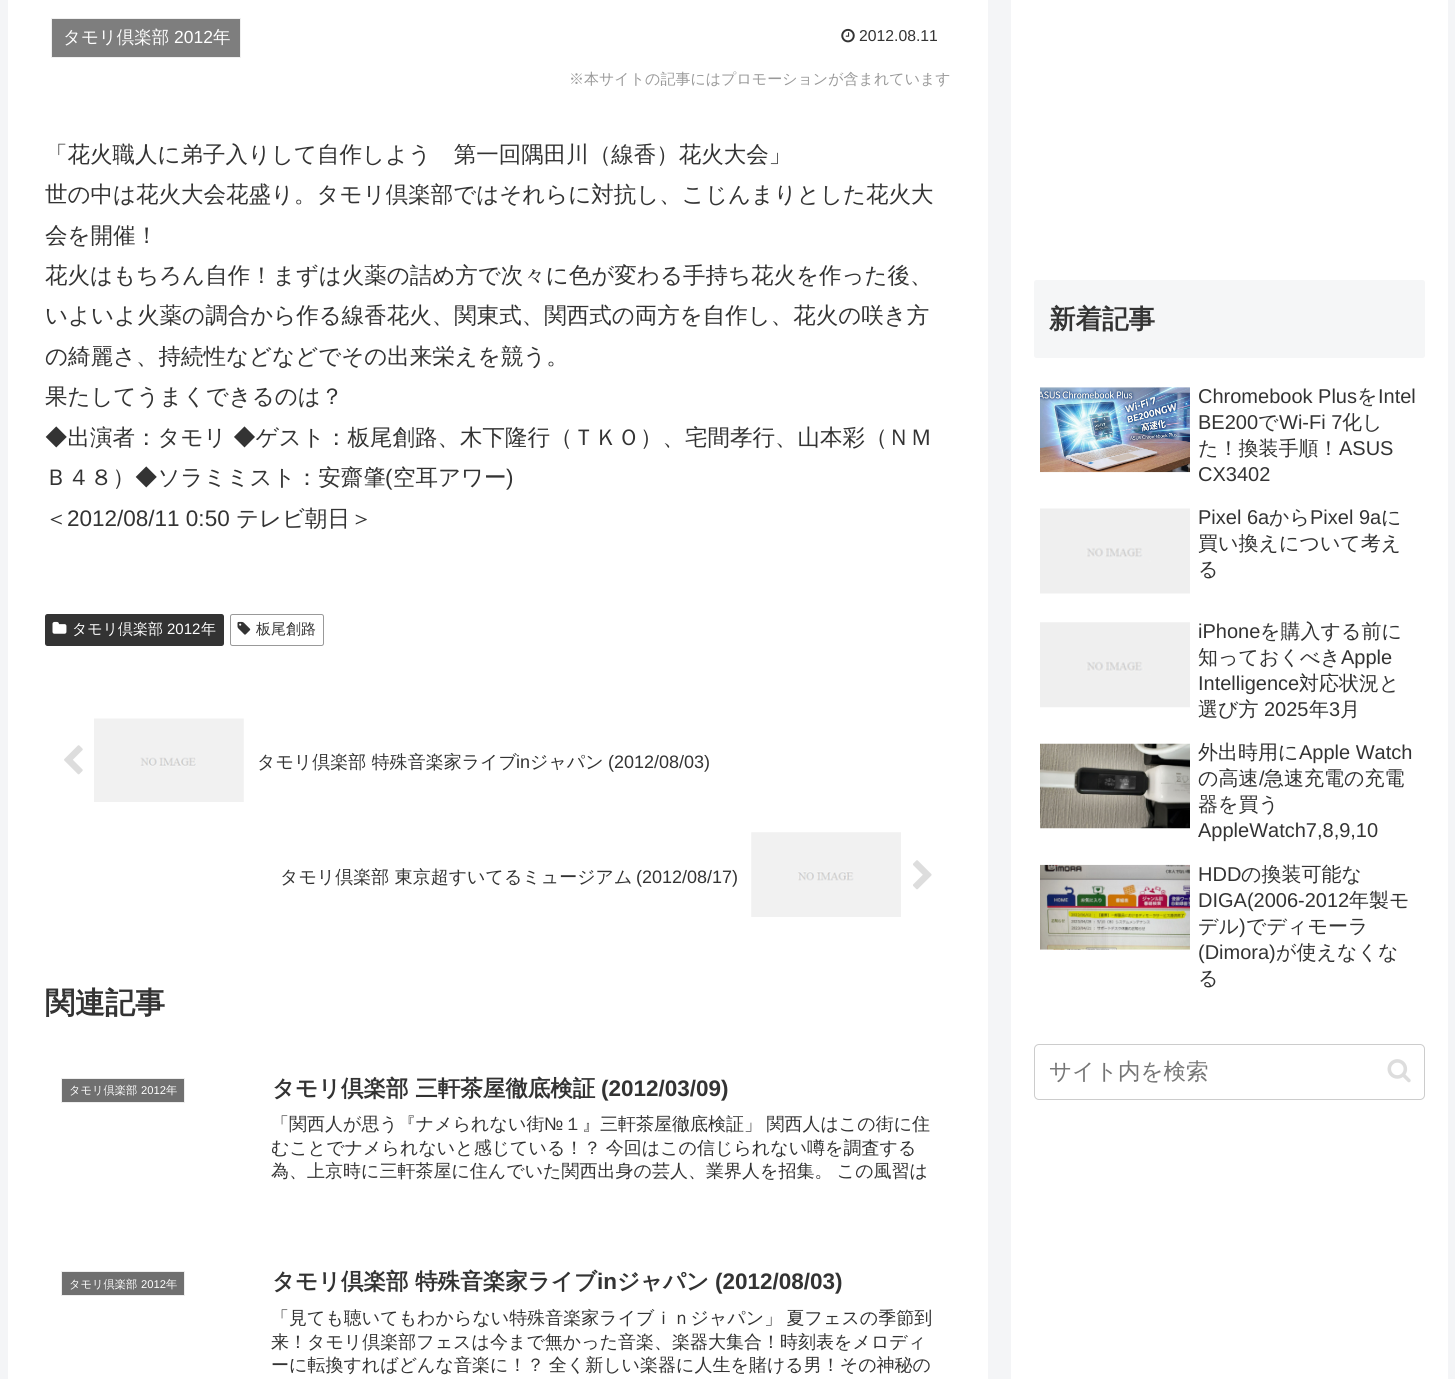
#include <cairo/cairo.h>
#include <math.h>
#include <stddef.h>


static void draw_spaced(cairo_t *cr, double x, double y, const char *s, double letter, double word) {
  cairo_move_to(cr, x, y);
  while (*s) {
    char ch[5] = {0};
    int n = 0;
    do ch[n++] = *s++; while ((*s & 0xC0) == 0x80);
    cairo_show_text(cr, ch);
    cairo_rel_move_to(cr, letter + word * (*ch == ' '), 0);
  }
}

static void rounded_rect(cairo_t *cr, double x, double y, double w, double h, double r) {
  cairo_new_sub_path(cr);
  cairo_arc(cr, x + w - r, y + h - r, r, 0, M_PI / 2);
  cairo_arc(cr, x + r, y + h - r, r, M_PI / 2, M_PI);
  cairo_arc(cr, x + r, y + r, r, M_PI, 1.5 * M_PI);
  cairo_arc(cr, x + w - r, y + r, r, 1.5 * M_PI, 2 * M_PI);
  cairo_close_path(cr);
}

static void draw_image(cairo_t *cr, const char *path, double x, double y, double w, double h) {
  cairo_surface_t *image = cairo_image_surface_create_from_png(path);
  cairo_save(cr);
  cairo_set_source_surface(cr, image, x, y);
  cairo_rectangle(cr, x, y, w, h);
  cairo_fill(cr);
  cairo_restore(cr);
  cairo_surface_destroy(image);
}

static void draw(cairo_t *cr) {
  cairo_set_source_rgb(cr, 244 / 255.0, 245 / 255.0, 247 / 255.0);
  cairo_paint(cr);
  cairo_set_source_rgb(cr, 1, 1, 1);
  cairo_rectangle(cr, 8, 0, 980, 1379);
  cairo_fill(cr);
  cairo_set_source_rgb(cr, 126 / 255.0, 126 / 255.0, 126 / 255.0);
  cairo_rectangle(cr, 51.5, 18.5, 189, 39);
  cairo_fill_preserve(cr);
  cairo_set_source_rgb(cr, 240 / 255.0, 240 / 255.0, 240 / 255.0);
  cairo_set_line_width(cr, 1);
  cairo_stroke(cr);
  draw_image(cr, "images/1.png", 841, 28, 14, 15);
  cairo_set_source_rgb(cr, 51 / 255.0, 51 / 255.0, 51 / 255.0);
  rounded_rect(cr, 45, 614, 179, 32, 2.5);
  cairo_fill(cr);
  draw_image(cr, "images/2.png", 52, 621, 15, 13);
  rounded_rect(cr, 230.5, 614.5, 93, 31, 2);
  cairo_set_source_rgb(cr, 153 / 255.0, 153 / 255.0, 153 / 255.0);
  cairo_stroke(cr);
  draw_image(cr, "images/3.png", 237, 621, 14, 14);
  draw_image(cr, "images/4.png", 64, 745, 19, 30);
  draw_image(cr, "images/5.png", 94, 718, 150, 84);
  draw_image(cr, "images/6.png", 751, 832, 150, 85);
  draw_image(cr, "images/7.png", 913, 860, 19, 30);
  cairo_set_source_rgb(cr, 112 / 255.0, 112 / 255.0, 112 / 255.0);
  cairo_rectangle(cr, 61.5, 1078.5, 123, 24);
  cairo_fill_preserve(cr);
  cairo_set_source_rgb(cr, 238 / 255.0, 238 / 255.0, 238 / 255.0);
  cairo_stroke(cr);
  cairo_set_source_rgb(cr, 112 / 255.0, 112 / 255.0, 112 / 255.0);
  cairo_rectangle(cr, 61.5, 1271.5, 123, 24);
  cairo_fill_preserve(cr);
  cairo_set_source_rgb(cr, 238 / 255.0, 238 / 255.0, 238 / 255.0);
  cairo_stroke(cr);
  cairo_set_source_rgb(cr, 1, 1, 1);
  cairo_rectangle(cr, 1011, 0, 437, 1379);
  cairo_fill(cr);
  cairo_set_source_rgb(cr, 245 / 255.0, 246 / 255.0, 247 / 255.0);
  rounded_rect(cr, 1034, 280, 391, 78, 2.5);
  cairo_fill(cr);
  draw_image(cr, "images/8.png", 1040, 387, 150, 86);
  draw_image(cr, "images/9.png", 1040, 508, 150, 86);
  draw_image(cr, "images/10.png", 1040, 622, 150, 86);
  draw_image(cr, "images/11.png", 1040, 743, 150, 86);
  draw_image(cr, "images/12.png", 1040, 864, 150, 86);
  rounded_rect(cr, 1034.5, 1044.5, 390, 55, 4.5);
  cairo_set_source_rgb(cr, 204 / 255.0, 204 / 255.0, 204 / 255.0);
  cairo_stroke(cr);
  draw_image(cr, "images/13.png", 1387, 1059, 24, 24);
  cairo_select_font_face(cr, "WenQuanYi Zen Hei Medium", CAIRO_FONT_SLANT_NORMAL, CAIRO_FONT_WEIGHT_NORMAL);
  cairo_set_font_size(cr, 17.5);
  cairo_set_source_rgb(cr, 1, 1, 1);
  cairo_move_to(cr, 63, 43);
  cairo_show_text(cr, "タモリ倶楽部");
  cairo_select_font_face(cr, "Liberation Sans", CAIRO_FONT_SLANT_NORMAL, CAIRO_FONT_WEIGHT_NORMAL);
  cairo_move_to(cr, 174, 43);
  cairo_show_text(cr, "2012");
  cairo_select_font_face(cr, "WenQuanYi Zen Hei Medium", CAIRO_FONT_SLANT_NORMAL, CAIRO_FONT_WEIGHT_NORMAL);
  cairo_move_to(cr, 213, 43);
  cairo_show_text(cr, "年");
  cairo_select_font_face(cr, "Liberation Sans", CAIRO_FONT_SLANT_NORMAL, CAIRO_FONT_WEIGHT_NORMAL);
  cairo_set_font_size(cr, 15.75);
  cairo_set_source_rgb(cr, 51 / 255.0, 51 / 255.0, 51 / 255.0);
  cairo_move_to(cr, 859, 41);
  cairo_show_text(cr, "2012.08.11");
  cairo_select_font_face(cr, "WenQuanYi Zen Hei Medium", CAIRO_FONT_SLANT_NORMAL, CAIRO_FONT_WEIGHT_NORMAL);
  cairo_set_font_size(cr, 15);
  cairo_set_source_rgb(cr, 153 / 255.0, 153 / 255.0, 153 / 255.0);
  cairo_move_to(cr, 569, 84);
  cairo_show_text(cr, "※本サイトの記事にはプロモーションが含まれています");
  cairo_set_font_size(cr, 22.5);
  cairo_set_source_rgb(cr, 51 / 255.0, 51 / 255.0, 51 / 255.0);
  cairo_move_to(cr, 45, 162);
  cairo_show_text(cr, "「花火職人に弟子入りして自作しよう　第一回隅田川（線香）花火大会」");
  cairo_move_to(cr, 45, 202);
  cairo_show_text(cr, "世の中は花火大会花盛り。タモリ倶楽部ではそれらに対抗し、こじんまりとした花火大");
  cairo_move_to(cr, 45, 243);
  cairo_show_text(cr, "会を開催！");
  cairo_move_to(cr, 45, 283);
  cairo_show_text(cr, "花火はもちろん自作！まずは火薬の詰め方で次々に色が変わる手持ち花火を作った後、");
  cairo_move_to(cr, 45, 323);
  cairo_show_text(cr, "いよいよ火薬の調合から作る線香花火、関東式、関西式の両方を自作し、花火の咲き方");
  cairo_move_to(cr, 45, 364);
  cairo_show_text(cr, "の綺麗さ、持続性などなどでその出来栄えを競う。");
  cairo_move_to(cr, 45, 404);
  cairo_show_text(cr, "果たしてうまくできるのは？");
  cairo_move_to(cr, 45, 445);
  cairo_show_text(cr, "◆出演者：タモリ ◆ゲスト：板尾創路、木下隆行（ＴＫＯ）、宅間孝行、山本彩（ＮＭ");
  cairo_move_to(cr, 45, 485);
  cairo_show_text(cr, "Ｂ４８）◆ソラミミスト：安齋肇");
  cairo_select_font_face(cr, "Liberation Sans", CAIRO_FONT_SLANT_NORMAL, CAIRO_FONT_WEIGHT_NORMAL);
  cairo_move_to(cr, 385, 485);
  cairo_show_text(cr, "(");
  cairo_select_font_face(cr, "WenQuanYi Zen Hei Medium", CAIRO_FONT_SLANT_NORMAL, CAIRO_FONT_WEIGHT_NORMAL);
  cairo_move_to(cr, 393, 485);
  cairo_show_text(cr, "空耳アワー");
  cairo_select_font_face(cr, "Liberation Sans", CAIRO_FONT_SLANT_NORMAL, CAIRO_FONT_WEIGHT_NORMAL);
  cairo_move_to(cr, 506, 485);
  cairo_show_text(cr, ")");
  cairo_select_font_face(cr, "WenQuanYi Zen Hei Medium", CAIRO_FONT_SLANT_NORMAL, CAIRO_FONT_WEIGHT_NORMAL);
  cairo_move_to(cr, 45, 526);
  cairo_show_text(cr, "＜");
  cairo_select_font_face(cr, "Liberation Sans", CAIRO_FONT_SLANT_NORMAL, CAIRO_FONT_WEIGHT_NORMAL);
  cairo_move_to(cr, 67, 526);
  cairo_show_text(cr, "2012/08/11 0:50");
  cairo_select_font_face(cr, "WenQuanYi Zen Hei Medium", CAIRO_FONT_SLANT_NORMAL, CAIRO_FONT_WEIGHT_NORMAL);
  cairo_move_to(cr, 236, 526);
  cairo_show_text(cr, "テレビ朝日＞");
  cairo_set_font_size(cr, 15);
  cairo_set_source_rgb(cr, 1, 1, 1);
  cairo_move_to(cr, 72, 634);
  cairo_show_text(cr, "タモリ倶楽部");
  cairo_select_font_face(cr, "Liberation Sans", CAIRO_FONT_SLANT_NORMAL, CAIRO_FONT_WEIGHT_NORMAL);
  cairo_move_to(cr, 167, 634);
  cairo_show_text(cr, "2012");
  cairo_select_font_face(cr, "WenQuanYi Zen Hei Medium", CAIRO_FONT_SLANT_NORMAL, CAIRO_FONT_WEIGHT_NORMAL);
  cairo_move_to(cr, 201, 634);
  cairo_show_text(cr, "年");
  cairo_set_source_rgb(cr, 51 / 255.0, 51 / 255.0, 51 / 255.0);
  cairo_move_to(cr, 256, 634);
  cairo_show_text(cr, "板尾創路");
  cairo_set_font_size(cr, 18);
  cairo_move_to(cr, 257, 768);
  cairo_show_text(cr, "タモリ倶楽部 特殊音楽家ライブ");
  cairo_select_font_face(cr, "Liberation Sans", CAIRO_FONT_SLANT_NORMAL, CAIRO_FONT_WEIGHT_NORMAL);
  cairo_move_to(cr, 516, 768);
  cairo_show_text(cr, "in");
  cairo_select_font_face(cr, "WenQuanYi Zen Hei Medium", CAIRO_FONT_SLANT_NORMAL, CAIRO_FONT_WEIGHT_NORMAL);
  cairo_move_to(cr, 530, 768);
  cairo_show_text(cr, "ジャパン");
  cairo_select_font_face(cr, "Liberation Sans", CAIRO_FONT_SLANT_NORMAL, CAIRO_FONT_WEIGHT_NORMAL);
  cairo_move_to(cr, 608, 768);
  cairo_show_text(cr, "(2012/08/03)");
  cairo_select_font_face(cr, "WenQuanYi Zen Hei Medium", CAIRO_FONT_SLANT_NORMAL, CAIRO_FONT_WEIGHT_NORMAL);
  cairo_move_to(cr, 280, 883);
  cairo_show_text(cr, "タモリ倶楽部 東京超すいてるミュージアム");
  cairo_select_font_face(cr, "Liberation Sans", CAIRO_FONT_SLANT_NORMAL, CAIRO_FONT_WEIGHT_NORMAL);
  cairo_move_to(cr, 636, 883);
  cairo_show_text(cr, "(2012/08/17)");
  cairo_select_font_face(cr, "WenQuanYi Zen Hei", CAIRO_FONT_SLANT_NORMAL, CAIRO_FONT_WEIGHT_BOLD);
  cairo_set_font_size(cr, 30);
  cairo_move_to(cr, 45, 1013);
  cairo_show_text(cr, "関連記事");
  cairo_select_font_face(cr, "WenQuanYi Zen Hei Medium", CAIRO_FONT_SLANT_NORMAL, CAIRO_FONT_WEIGHT_NORMAL);
  cairo_set_font_size(cr, 11.25);
  cairo_set_source_rgb(cr, 1, 1, 1);
  cairo_move_to(cr, 69, 1094);
  cairo_show_text(cr, "タモリ倶楽部");
  cairo_select_font_face(cr, "Liberation Sans", CAIRO_FONT_SLANT_NORMAL, CAIRO_FONT_WEIGHT_NORMAL);
  cairo_move_to(cr, 141, 1094);
  cairo_show_text(cr, "2012");
  cairo_select_font_face(cr, "WenQuanYi Zen Hei Medium", CAIRO_FONT_SLANT_NORMAL, CAIRO_FONT_WEIGHT_NORMAL);
  cairo_move_to(cr, 166, 1094);
  cairo_show_text(cr, "年");
  cairo_select_font_face(cr, "WenQuanYi Zen Hei", CAIRO_FONT_SLANT_NORMAL, CAIRO_FONT_WEIGHT_BOLD);
  cairo_set_font_size(cr, 22.5);
  cairo_set_source_rgb(cr, 51 / 255.0, 51 / 255.0, 51 / 255.0);
  cairo_move_to(cr, 272, 1096);
  cairo_show_text(cr, "タモリ倶楽部 三軒茶屋徹底検証");
  cairo_select_font_face(cr, "Liberation Sans", CAIRO_FONT_SLANT_NORMAL, CAIRO_FONT_WEIGHT_BOLD);
  cairo_move_to(cr, 601, 1096);
  cairo_show_text(cr, "(2012/03/09)");
  cairo_select_font_face(cr, "WenQuanYi Zen Hei Medium", CAIRO_FONT_SLANT_NORMAL, CAIRO_FONT_WEIGHT_NORMAL);
  cairo_set_font_size(cr, 18);
  cairo_move_to(cr, 271, 1130);
  cairo_show_text(cr, "「関西人が思う『ナメられない街");
  cairo_select_font_face(cr, "Liberation Sans", CAIRO_FONT_SLANT_NORMAL, CAIRO_FONT_WEIGHT_NORMAL);
  cairo_move_to(cr, 544, 1130);
  cairo_show_text(cr, "№");
  cairo_select_font_face(cr, "WenQuanYi Zen Hei Medium", CAIRO_FONT_SLANT_NORMAL, CAIRO_FONT_WEIGHT_NORMAL);
  draw_spaced(cr, 564, 1130, "１』三軒茶屋徹底検証」 関西人はこの街に住", 0, -1);
  draw_spaced(cr, 271, 1154, "むことでナメられないと感じている！？ 今回はこの信じられない噂を調査する", 0, -1);
  draw_spaced(cr, 271, 1177, "為、上京時に三軒茶屋に住んでいた関西出身の芸人、業界人を招集。 この風習は", 0, -1);
  cairo_set_font_size(cr, 11.25);
  cairo_set_source_rgb(cr, 1, 1, 1);
  cairo_move_to(cr, 69, 1288);
  cairo_show_text(cr, "タモリ倶楽部");
  cairo_select_font_face(cr, "Liberation Sans", CAIRO_FONT_SLANT_NORMAL, CAIRO_FONT_WEIGHT_NORMAL);
  cairo_move_to(cr, 141, 1288);
  cairo_show_text(cr, "2012");
  cairo_select_font_face(cr, "WenQuanYi Zen Hei Medium", CAIRO_FONT_SLANT_NORMAL, CAIRO_FONT_WEIGHT_NORMAL);
  cairo_move_to(cr, 166, 1288);
  cairo_show_text(cr, "年");
  cairo_select_font_face(cr, "WenQuanYi Zen Hei", CAIRO_FONT_SLANT_NORMAL, CAIRO_FONT_WEIGHT_BOLD);
  cairo_set_font_size(cr, 22.5);
  cairo_set_source_rgb(cr, 51 / 255.0, 51 / 255.0, 51 / 255.0);
  cairo_move_to(cr, 272, 1289);
  cairo_show_text(cr, "タモリ倶楽部 特殊音楽家ライブ");
  cairo_select_font_face(cr, "Liberation Sans", CAIRO_FONT_SLANT_NORMAL, CAIRO_FONT_WEIGHT_BOLD);
  cairo_move_to(cr, 597, 1289);
  cairo_show_text(cr, "in");
  cairo_select_font_face(cr, "WenQuanYi Zen Hei", CAIRO_FONT_SLANT_NORMAL, CAIRO_FONT_WEIGHT_BOLD);
  cairo_move_to(cr, 617, 1289);
  cairo_show_text(cr, "ジャパン");
  cairo_select_font_face(cr, "Liberation Sans", CAIRO_FONT_SLANT_NORMAL, CAIRO_FONT_WEIGHT_BOLD);
  cairo_move_to(cr, 715, 1289);
  cairo_show_text(cr, "(2012/08/03)");
  cairo_select_font_face(cr, "WenQuanYi Zen Hei Medium", CAIRO_FONT_SLANT_NORMAL, CAIRO_FONT_WEIGHT_NORMAL);
  cairo_set_font_size(cr, 18);
  draw_spaced(cr, 271, 1324, "「見ても聴いてもわからない特殊音楽家ライブｉｎジャパン」 夏フェスの季節到", 0, -1);
  cairo_move_to(cr, 271, 1348);
  cairo_show_text(cr, "来！タモリ倶楽部フェスは今まで無かった音楽、楽器大集合！時刻表をメロディ");
  draw_spaced(cr, 271, 1371, "ーに転換すればどんな音楽に！？ 全く新しい楽器に人生を賭ける男！その神秘の", 0, -1);
  cairo_select_font_face(cr, "WenQuanYi Zen Hei", CAIRO_FONT_SLANT_NORMAL, CAIRO_FONT_WEIGHT_BOLD);
  cairo_set_font_size(cr, 26.5);
  cairo_move_to(cr, 1049, 328);
  cairo_show_text(cr, "新着記事");
  cairo_select_font_face(cr, "Liberation Sans", CAIRO_FONT_SLANT_NORMAL, CAIRO_FONT_WEIGHT_NORMAL);
  cairo_set_font_size(cr, 20);
  cairo_move_to(cr, 1198, 403);
  cairo_show_text(cr, "Chromebook Plus");
  cairo_select_font_face(cr, "WenQuanYi Zen Hei Medium", CAIRO_FONT_SLANT_NORMAL, CAIRO_FONT_WEIGHT_NORMAL);
  cairo_move_to(cr, 1357, 403);
  cairo_show_text(cr, "を");
  cairo_select_font_face(cr, "Liberation Sans", CAIRO_FONT_SLANT_NORMAL, CAIRO_FONT_WEIGHT_NORMAL);
  cairo_move_to(cr, 1378, 403);
  cairo_show_text(cr, "Intel");
  cairo_move_to(cr, 1198, 429);
  cairo_show_text(cr, "BE200");
  cairo_select_font_face(cr, "WenQuanYi Zen Hei Medium", CAIRO_FONT_SLANT_NORMAL, CAIRO_FONT_WEIGHT_NORMAL);
  cairo_move_to(cr, 1258, 429);
  cairo_show_text(cr, "で");
  cairo_select_font_face(cr, "Liberation Sans", CAIRO_FONT_SLANT_NORMAL, CAIRO_FONT_WEIGHT_NORMAL);
  cairo_move_to(cr, 1279, 429);
  cairo_show_text(cr, "Wi-Fi 7");
  cairo_select_font_face(cr, "WenQuanYi Zen Hei Medium", CAIRO_FONT_SLANT_NORMAL, CAIRO_FONT_WEIGHT_NORMAL);
  cairo_move_to(cr, 1342, 429);
  cairo_show_text(cr, "化し");
  cairo_move_to(cr, 1198, 455);
  cairo_show_text(cr, "た！換装手順！");
  cairo_select_font_face(cr, "Liberation Sans", CAIRO_FONT_SLANT_NORMAL, CAIRO_FONT_WEIGHT_NORMAL);
  cairo_move_to(cr, 1339, 455);
  cairo_show_text(cr, "ASUS");
  cairo_move_to(cr, 1198, 481);
  cairo_show_text(cr, "CX3402");
  cairo_move_to(cr, 1198, 524);
  cairo_show_text(cr, "Pixel 6a");
  cairo_select_font_face(cr, "WenQuanYi Zen Hei Medium", CAIRO_FONT_SLANT_NORMAL, CAIRO_FONT_WEIGHT_NORMAL);
  cairo_move_to(cr, 1269, 524);
  cairo_show_text(cr, "から");
  cairo_select_font_face(cr, "Liberation Sans", CAIRO_FONT_SLANT_NORMAL, CAIRO_FONT_WEIGHT_NORMAL);
  cairo_move_to(cr, 1310, 524);
  cairo_show_text(cr, "Pixel 9a");
  cairo_select_font_face(cr, "WenQuanYi Zen Hei Medium", CAIRO_FONT_SLANT_NORMAL, CAIRO_FONT_WEIGHT_NORMAL);
  cairo_move_to(cr, 1381, 524);
  cairo_show_text(cr, "に");
  cairo_move_to(cr, 1198, 550);
  cairo_show_text(cr, "買い換えについて考え");
  cairo_move_to(cr, 1198, 576);
  cairo_show_text(cr, "る");
  cairo_select_font_face(cr, "Liberation Sans", CAIRO_FONT_SLANT_NORMAL, CAIRO_FONT_WEIGHT_NORMAL);
  cairo_move_to(cr, 1198, 638);
  cairo_show_text(cr, "iPhone");
  cairo_select_font_face(cr, "WenQuanYi Zen Hei Medium", CAIRO_FONT_SLANT_NORMAL, CAIRO_FONT_WEIGHT_NORMAL);
  cairo_move_to(cr, 1260, 638);
  cairo_show_text(cr, "を購入する前に");
  cairo_move_to(cr, 1198, 664);
  cairo_show_text(cr, "知っておくべき");
  cairo_select_font_face(cr, "Liberation Sans", CAIRO_FONT_SLANT_NORMAL, CAIRO_FONT_WEIGHT_NORMAL);
  cairo_move_to(cr, 1341, 664);
  cairo_show_text(cr, "Apple");
  cairo_move_to(cr, 1198, 690);
  cairo_show_text(cr, "Intelligence");
  cairo_select_font_face(cr, "WenQuanYi Zen Hei Medium", CAIRO_FONT_SLANT_NORMAL, CAIRO_FONT_WEIGHT_NORMAL);
  cairo_move_to(cr, 1299, 690);
  cairo_show_text(cr, "対応状況と");
  cairo_move_to(cr, 1198, 716);
  cairo_show_text(cr, "選び方");
  cairo_select_font_face(cr, "Liberation Sans", CAIRO_FONT_SLANT_NORMAL, CAIRO_FONT_WEIGHT_NORMAL);
  cairo_move_to(cr, 1264, 716);
  cairo_show_text(cr, "2025");
  cairo_select_font_face(cr, "WenQuanYi Zen Hei Medium", CAIRO_FONT_SLANT_NORMAL, CAIRO_FONT_WEIGHT_NORMAL);
  cairo_move_to(cr, 1309, 716);
  cairo_show_text(cr, "年");
  cairo_select_font_face(cr, "Liberation Sans", CAIRO_FONT_SLANT_NORMAL, CAIRO_FONT_WEIGHT_NORMAL);
  cairo_move_to(cr, 1329, 716);
  cairo_show_text(cr, "3");
  cairo_select_font_face(cr, "WenQuanYi Zen Hei Medium", CAIRO_FONT_SLANT_NORMAL, CAIRO_FONT_WEIGHT_NORMAL);
  cairo_move_to(cr, 1340, 716);
  cairo_show_text(cr, "月");
  cairo_move_to(cr, 1198, 759);
  cairo_show_text(cr, "外出時用に");
  cairo_select_font_face(cr, "Liberation Sans", CAIRO_FONT_SLANT_NORMAL, CAIRO_FONT_WEIGHT_NORMAL);
  cairo_move_to(cr, 1299, 759);
  cairo_show_text(cr, "Apple Watch");
  cairo_select_font_face(cr, "WenQuanYi Zen Hei Medium", CAIRO_FONT_SLANT_NORMAL, CAIRO_FONT_WEIGHT_NORMAL);
  cairo_move_to(cr, 1198, 785);
  cairo_show_text(cr, "の高速");
  cairo_select_font_face(cr, "Liberation Sans", CAIRO_FONT_SLANT_NORMAL, CAIRO_FONT_WEIGHT_NORMAL);
  cairo_move_to(cr, 1259, 785);
  cairo_show_text(cr, "/");
  cairo_select_font_face(cr, "WenQuanYi Zen Hei Medium", CAIRO_FONT_SLANT_NORMAL, CAIRO_FONT_WEIGHT_NORMAL);
  cairo_move_to(cr, 1264, 785);
  cairo_show_text(cr, "急速充電の充電");
  cairo_move_to(cr, 1198, 811);
  cairo_show_text(cr, "器を買う");
  cairo_select_font_face(cr, "Liberation Sans", CAIRO_FONT_SLANT_NORMAL, CAIRO_FONT_WEIGHT_NORMAL);
  cairo_move_to(cr, 1198, 837);
  cairo_show_text(cr, "AppleWatch7,8,9,10");
  cairo_move_to(cr, 1198, 881);
  cairo_show_text(cr, "HDD");
  cairo_select_font_face(cr, "WenQuanYi Zen Hei Medium", CAIRO_FONT_SLANT_NORMAL, CAIRO_FONT_WEIGHT_NORMAL);
  cairo_move_to(cr, 1241, 881);
  cairo_show_text(cr, "の換装可能な");
  cairo_select_font_face(cr, "Liberation Sans", CAIRO_FONT_SLANT_NORMAL, CAIRO_FONT_WEIGHT_NORMAL);
  cairo_move_to(cr, 1198, 907);
  cairo_show_text(cr, "DIGA(2006-2012");
  cairo_select_font_face(cr, "WenQuanYi Zen Hei Medium", CAIRO_FONT_SLANT_NORMAL, CAIRO_FONT_WEIGHT_NORMAL);
  cairo_move_to(cr, 1349, 907);
  cairo_show_text(cr, "年製モ");
  cairo_move_to(cr, 1198, 933);
  cairo_show_text(cr, "デル");
  cairo_select_font_face(cr, "Liberation Sans", CAIRO_FONT_SLANT_NORMAL, CAIRO_FONT_WEIGHT_NORMAL);
  cairo_move_to(cr, 1239, 933);
  cairo_show_text(cr, ")");
  cairo_select_font_face(cr, "WenQuanYi Zen Hei Medium", CAIRO_FONT_SLANT_NORMAL, CAIRO_FONT_WEIGHT_NORMAL);
  cairo_move_to(cr, 1246, 933);
  cairo_show_text(cr, "でディモーラ");
  cairo_select_font_face(cr, "Liberation Sans", CAIRO_FONT_SLANT_NORMAL, CAIRO_FONT_WEIGHT_NORMAL);
  cairo_move_to(cr, 1198, 959);
  cairo_show_text(cr, "(Dimora)");
  cairo_select_font_face(cr, "WenQuanYi Zen Hei Medium", CAIRO_FONT_SLANT_NORMAL, CAIRO_FONT_WEIGHT_NORMAL);
  cairo_move_to(cr, 1276, 959);
  cairo_show_text(cr, "が使えなくな");
  cairo_move_to(cr, 1198, 985);
  cairo_show_text(cr, "る");
  cairo_set_font_size(cr, 22.5);
  cairo_set_source_rgb(cr, 117 / 255.0, 117 / 255.0, 117 / 255.0);
  cairo_move_to(cr, 1049, 1079);
  cairo_show_text(cr, "サイト内を検索");
}

int main(void) {
  cairo_surface_t *surface = cairo_image_surface_create(CAIRO_FORMAT_RGB24, 1455, 1379);
  cairo_t *cr = cairo_create(surface);
  cairo_font_options_t *options = cairo_font_options_create();
  cairo_font_options_set_hint_metrics(options, CAIRO_HINT_METRICS_OFF);
  cairo_font_options_set_hint_style(options, CAIRO_HINT_STYLE_NONE);
  cairo_set_font_options(cr, options);
  cairo_set_miter_limit(cr, 4);
  draw(cr);
  cairo_surface_write_to_png(surface, "out.png");
  cairo_font_options_destroy(options);
  cairo_destroy(cr);
  cairo_surface_destroy(surface);
  return 0;
}
